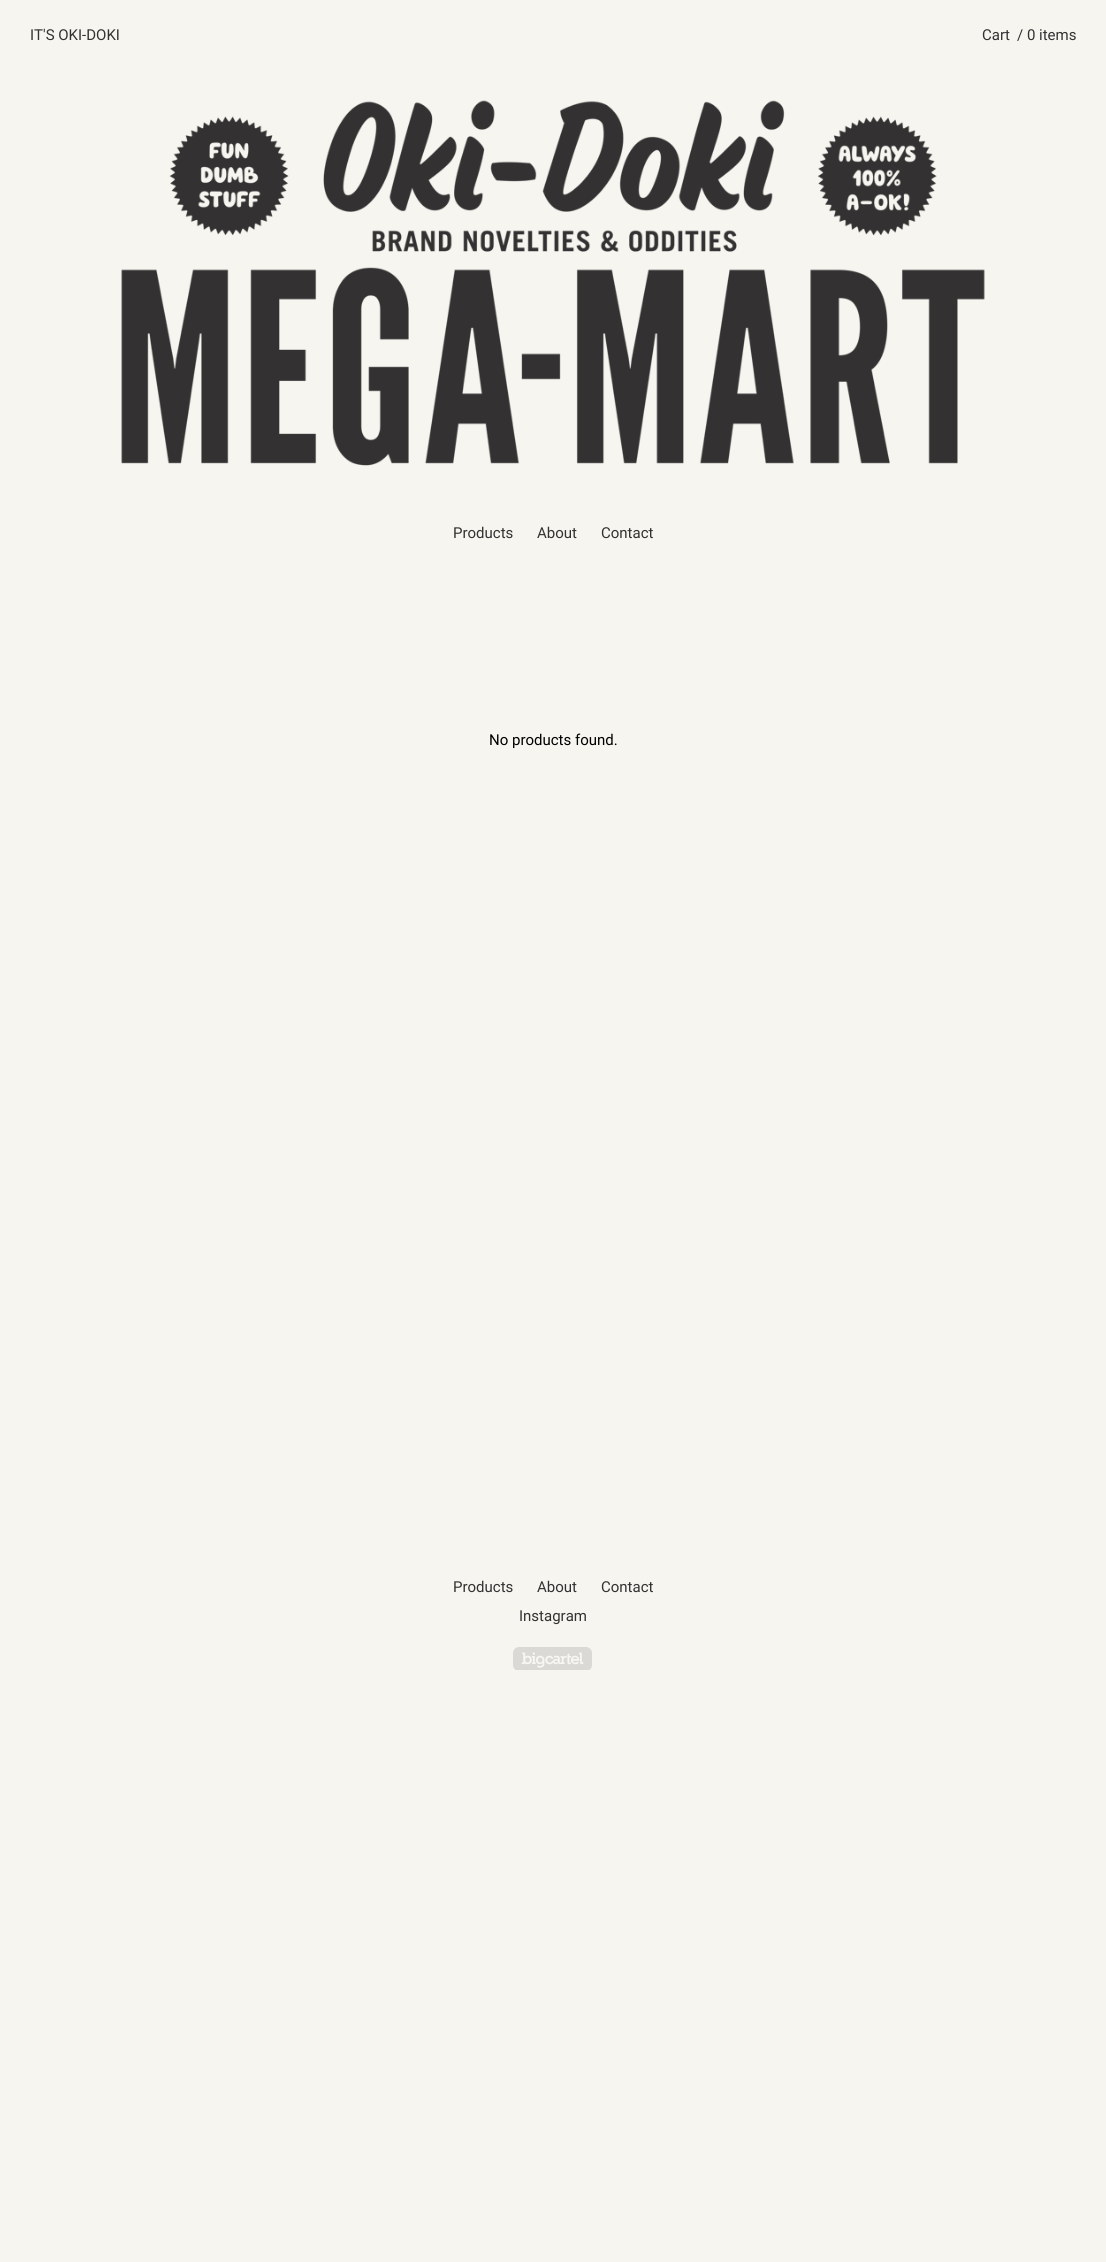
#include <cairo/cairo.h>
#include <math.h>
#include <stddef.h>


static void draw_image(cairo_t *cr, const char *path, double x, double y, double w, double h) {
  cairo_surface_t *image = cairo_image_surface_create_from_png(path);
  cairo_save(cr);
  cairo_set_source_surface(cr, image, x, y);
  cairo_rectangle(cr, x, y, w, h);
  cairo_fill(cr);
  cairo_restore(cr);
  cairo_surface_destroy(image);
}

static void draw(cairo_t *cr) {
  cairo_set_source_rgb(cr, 247 / 255.0, 245 / 255.0, 240 / 255.0);
  cairo_paint(cr);
  draw_image(cr, "images/1.png", 121, 100, 864, 366);
  draw_image(cr, "images/2.png", 513, 1647, 79, 23);
  cairo_select_font_face(cr, "Roboto", CAIRO_FONT_SLANT_NORMAL, CAIRO_FONT_WEIGHT_NORMAL);
  cairo_set_font_size(cr, 15);
  cairo_set_source_rgb(cr, 51 / 255.0, 49 / 255.0, 50 / 255.0);
  cairo_move_to(cr, 30, 40);
  cairo_show_text(cr, "IT'S OKI-DOKI");
  cairo_move_to(cr, 982, 40);
  cairo_show_text(cr, "Cart");
  cairo_move_to(cr, 1017, 40);
  cairo_show_text(cr, "/ 0 items");
  cairo_move_to(cr, 453, 538);
  cairo_show_text(cr, "Products");
  cairo_move_to(cr, 537, 538);
  cairo_show_text(cr, "About");
  cairo_move_to(cr, 601, 538);
  cairo_show_text(cr, "Contact");
  cairo_set_source_rgb(cr, 0, 0, 0);
  cairo_move_to(cr, 489, 745);
  cairo_show_text(cr, "No products found.");
  cairo_set_source_rgb(cr, 51 / 255.0, 49 / 255.0, 50 / 255.0);
  cairo_move_to(cr, 453, 1592);
  cairo_show_text(cr, "Products");
  cairo_move_to(cr, 537, 1592);
  cairo_show_text(cr, "About");
  cairo_move_to(cr, 601, 1592);
  cairo_show_text(cr, "Contact");
  cairo_move_to(cr, 519, 1621);
  cairo_show_text(cr, "Instagram");
}

int main(void) {
  cairo_surface_t *surface = cairo_image_surface_create(CAIRO_FORMAT_RGB24, 1106, 2262);
  cairo_t *cr = cairo_create(surface);
  cairo_font_options_t *options = cairo_font_options_create();
  cairo_font_options_set_hint_metrics(options, CAIRO_HINT_METRICS_OFF);
  cairo_font_options_set_hint_style(options, CAIRO_HINT_STYLE_NONE);
  cairo_set_font_options(cr, options);
  cairo_set_miter_limit(cr, 4);
  draw(cr);
  cairo_surface_write_to_png(surface, "out.png");
  cairo_font_options_destroy(options);
  cairo_destroy(cr);
  cairo_surface_destroy(surface);
  return 0;
}
